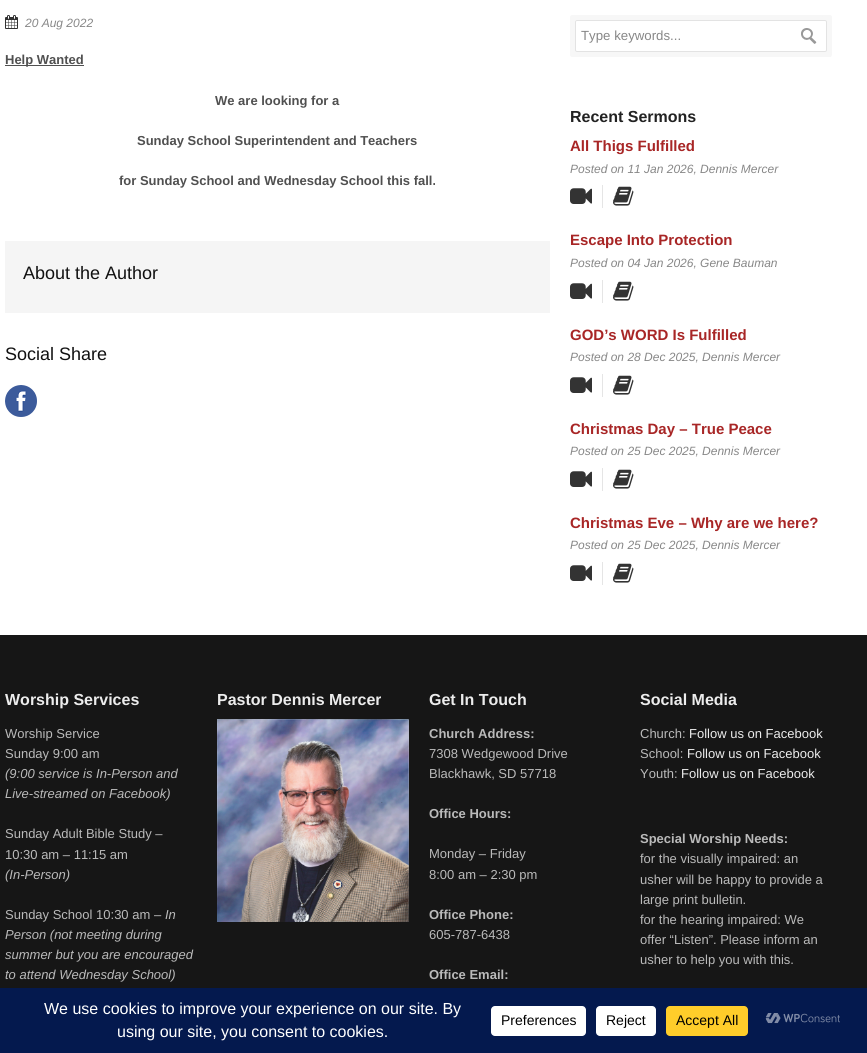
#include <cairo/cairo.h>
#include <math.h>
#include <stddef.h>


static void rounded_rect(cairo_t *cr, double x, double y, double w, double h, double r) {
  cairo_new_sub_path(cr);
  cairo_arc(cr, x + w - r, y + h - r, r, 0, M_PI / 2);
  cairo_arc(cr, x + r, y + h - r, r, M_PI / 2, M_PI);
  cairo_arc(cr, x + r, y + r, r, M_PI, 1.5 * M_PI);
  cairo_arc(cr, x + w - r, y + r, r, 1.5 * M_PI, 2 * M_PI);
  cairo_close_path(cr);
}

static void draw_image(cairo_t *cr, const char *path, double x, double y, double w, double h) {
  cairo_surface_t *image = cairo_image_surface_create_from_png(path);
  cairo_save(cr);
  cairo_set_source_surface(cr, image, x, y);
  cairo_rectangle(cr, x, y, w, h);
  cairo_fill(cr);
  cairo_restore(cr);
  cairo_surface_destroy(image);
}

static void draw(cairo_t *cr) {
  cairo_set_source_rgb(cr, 1, 1, 1);
  cairo_paint(cr);
  draw_image(cr, "images/1.png", 5, 15, 13, 14);
  cairo_set_source_rgb(cr, 80 / 255.0, 80 / 255.0, 80 / 255.0);
  cairo_rectangle(cr, 5, 65, 79, 1);
  cairo_fill(cr);
  cairo_set_source_rgb(cr, 245 / 255.0, 245 / 255.0, 245 / 255.0);
  cairo_rectangle(cr, 5, 241, 545, 72);
  cairo_fill(cr);
  draw_image(cr, "images/2.png", 5, 385, 32, 32);
  cairo_set_source_rgb(cr, 247 / 255.0, 247 / 255.0, 247 / 255.0);
  cairo_new_path(cr);
  cairo_move_to(cr, 572, 25);
  cairo_curve_to(cr, 571, 25, 570, 26, 570, 27);
  cairo_line_to(cr, 570, 55);
  cairo_curve_to(cr, 570, 56, 571, 57, 572, 57);
  cairo_line_to(cr, 820, 57);
  cairo_curve_to(cr, 821, 57, 822, 56, 822, 55);
  cairo_line_to(cr, 822, 52);
  cairo_line_to(cr, 577, 52);
  cairo_curve_to(cr, 576, 52, 575, 51, 575, 50);
  cairo_line_to(cr, 575, 25);
  cairo_close_path(cr);
  cairo_fill(cr);
  cairo_new_path(cr);
  cairo_move_to(cr, 582, 15);
  cairo_curve_to(cr, 579, 15, 580, 18, 580, 20);
  cairo_line_to(cr, 825, 20);
  cairo_curve_to(cr, 826, 20, 827, 21, 827, 22);
  cairo_line_to(cr, 827, 47);
  cairo_line_to(cr, 830, 47);
  cairo_curve_to(cr, 831, 47, 832, 46, 832, 45);
  cairo_line_to(cr, 832, 17);
  cairo_curve_to(cr, 832, 16, 831, 15, 830, 15);
  cairo_close_path(cr);
  cairo_fill(cr);
  cairo_new_path(cr);
  cairo_move_to(cr, 575, 50);
  cairo_line_to(cr, 575, 55);
  cairo_curve_to(cr, 575, 56, 576, 57, 577, 57);
  cairo_line_to(cr, 825, 57);
  cairo_curve_to(cr, 826, 57, 827, 56, 827, 55);
  cairo_line_to(cr, 827, 50);
  cairo_curve_to(cr, 827, 51, 826, 52, 825, 52);
  cairo_line_to(cr, 577, 52);
  cairo_curve_to(cr, 576, 52, 575, 51, 575, 50);
  cairo_close_path(cr);
  cairo_fill(cr);
  cairo_new_path(cr);
  cairo_move_to(cr, 825, 52);
  cairo_curve_to(cr, 832, 52, 832, 53, 832, 45.5);
  cairo_line_to(cr, 832, 26.5);
  cairo_curve_to(cr, 832, 19, 832, 20, 825, 20);
  cairo_curve_to(cr, 826, 20, 827, 21, 827, 22);
  cairo_line_to(cr, 827, 50);
  cairo_curve_to(cr, 827, 51, 826, 52, 825, 52);
  cairo_close_path(cr);
  cairo_fill(cr);
  cairo_new_path(cr);
  cairo_move_to(cr, 580, 52);
  cairo_curve_to(cr, 580, 54, 579, 57, 582, 57);
  cairo_line_to(cr, 831, 57);
  cairo_line_to(cr, 832, 55);
  cairo_line_to(cr, 832, 32);
  cairo_curve_to(cr, 832, 25, 833, 25, 827, 25);
  cairo_line_to(cr, 827, 50);
  cairo_curve_to(cr, 827, 51, 826, 52, 825, 52);
  cairo_close_path(cr);
  cairo_fill(cr);
  cairo_new_path(cr);
  cairo_move_to(cr, 572, 15);
  cairo_curve_to(cr, 571, 15, 570, 16, 570, 17);
  cairo_line_to(cr, 570, 45);
  cairo_curve_to(cr, 570, 46, 571, 47, 572, 47);
  cairo_line_to(cr, 575, 47);
  cairo_line_to(cr, 575, 22);
  cairo_curve_to(cr, 575, 21, 576, 20, 577, 20);
  cairo_line_to(cr, 822, 20);
  cairo_curve_to(cr, 822, 18, 823, 15, 820, 15);
  cairo_close_path(cr);
  cairo_fill(cr);
  rounded_rect(cr, 575.5, 20.5, 251, 31, 1.5);
  cairo_set_source_rgb(cr, 227 / 255.0, 227 / 255.0, 227 / 255.0);
  cairo_set_line_width(cr, 1);
  cairo_stroke(cr);
  draw_image(cr, "images/3.png", 801, 28, 16, 16);
  draw_image(cr, "images/4.png", 570, 188, 22, 16);
  cairo_set_source_rgb(cr, 229 / 255.0, 229 / 255.0, 229 / 255.0);
  cairo_rectangle(cr, 602, 185, 1, 23);
  cairo_fill(cr);
  draw_image(cr, "images/5.png", 613, 186, 21, 20);
  draw_image(cr, "images/4.png", 570, 283, 22, 16);
  cairo_rectangle(cr, 602, 280, 1, 23);
  cairo_fill(cr);
  draw_image(cr, "images/5.png", 613, 281, 21, 20);
  draw_image(cr, "images/4.png", 570, 377, 22, 16);
  cairo_rectangle(cr, 602, 374, 1, 23);
  cairo_fill(cr);
  draw_image(cr, "images/5.png", 613, 375, 21, 20);
  draw_image(cr, "images/4.png", 570, 471, 22, 16);
  cairo_rectangle(cr, 602, 468, 1, 23);
  cairo_fill(cr);
  draw_image(cr, "images/5.png", 613, 469, 21, 20);
  draw_image(cr, "images/4.png", 570, 565, 22, 16);
  cairo_rectangle(cr, 602, 562, 1, 23);
  cairo_fill(cr);
  draw_image(cr, "images/5.png", 613, 563, 21, 20);
  cairo_set_source_rgb(cr, 22 / 255.0, 22 / 255.0, 22 / 255.0);
  cairo_rectangle(cr, 0, 635, 867, 353);
  cairo_fill(cr);
  draw_image(cr, "images/6.png", 217, 719, 192, 203);
  cairo_set_source_rgb(cr, 4 / 255.0, 25 / 255.0, 78 / 255.0);
  cairo_rectangle(cr, 0, 988, 867, 65);
  cairo_fill(cr);
  cairo_set_source_rgb(cr, 1, 1, 1);
  rounded_rect(cr, 491, 1006, 95, 30, 4);
  cairo_fill(cr);
  rounded_rect(cr, 596, 1006, 60, 30, 4);
  cairo_fill(cr);
  cairo_set_source_rgb(cr, 1, 205 / 255.0, 42 / 255.0);
  rounded_rect(cr, 666, 1006, 82, 30, 4);
  cairo_fill(cr);
  draw_image(cr, "images/7.png", 765, 1013, 75, 11);
  cairo_select_font_face(cr, "Liberation Sans", CAIRO_FONT_SLANT_ITALIC, CAIRO_FONT_WEIGHT_NORMAL);
  cairo_set_font_size(cr, 12);
  cairo_set_source_rgb(cr, 135 / 255.0, 135 / 255.0, 135 / 255.0);
  cairo_move_to(cr, 25, 27);
  cairo_show_text(cr, "20 Aug 2022");
  cairo_select_font_face(cr, "Liberation Sans", CAIRO_FONT_SLANT_NORMAL, CAIRO_FONT_WEIGHT_BOLD);
  cairo_set_font_size(cr, 13);
  cairo_set_source_rgb(cr, 80 / 255.0, 80 / 255.0, 80 / 255.0);
  cairo_move_to(cr, 5, 64);
  cairo_show_text(cr, "Help Wanted");
  cairo_move_to(cr, 215, 105);
  cairo_show_text(cr, "We are looking for a");
  cairo_move_to(cr, 137, 145);
  cairo_show_text(cr, "Sunday School Superintendent and Teachers");
  cairo_move_to(cr, 119, 185);
  cairo_show_text(cr, "for Sunday School and Wednesday School this fall.");
  cairo_select_font_face(cr, "Liberation Sans", CAIRO_FONT_SLANT_NORMAL, CAIRO_FONT_WEIGHT_NORMAL);
  cairo_set_font_size(cr, 18);
  cairo_set_source_rgb(cr, 17 / 255.0, 17 / 255.0, 17 / 255.0);
  cairo_move_to(cr, 23, 279);
  cairo_show_text(cr, "About the Author");
  cairo_move_to(cr, 5, 360);
  cairo_show_text(cr, "Social Share");
  cairo_set_font_size(cr, 13.25);
  cairo_set_source_rgb(cr, 135 / 255.0, 135 / 255.0, 135 / 255.0);
  cairo_move_to(cr, 581, 40);
  cairo_show_text(cr, "Type keywords...");
  cairo_select_font_face(cr, "Liberation Sans", CAIRO_FONT_SLANT_NORMAL, CAIRO_FONT_WEIGHT_BOLD);
  cairo_set_font_size(cr, 16);
  cairo_set_source_rgb(cr, 34 / 255.0, 34 / 255.0, 34 / 255.0);
  cairo_move_to(cr, 570, 122);
  cairo_show_text(cr, "Recent Sermons");
  cairo_set_font_size(cr, 15);
  cairo_set_source_rgb(cr, 168 / 255.0, 38 / 255.0, 38 / 255.0);
  cairo_move_to(cr, 570, 151);
  cairo_show_text(cr, "All Thigs Fulfilled");
  cairo_select_font_face(cr, "Liberation Sans", CAIRO_FONT_SLANT_ITALIC, CAIRO_FONT_WEIGHT_NORMAL);
  cairo_set_font_size(cr, 12);
  cairo_set_source_rgb(cr, 135 / 255.0, 135 / 255.0, 135 / 255.0);
  cairo_move_to(cr, 570, 173);
  cairo_show_text(cr, "Posted on 11 Jan 2026, Dennis Mercer");
  cairo_select_font_face(cr, "Liberation Sans", CAIRO_FONT_SLANT_NORMAL, CAIRO_FONT_WEIGHT_BOLD);
  cairo_set_font_size(cr, 15);
  cairo_set_source_rgb(cr, 168 / 255.0, 38 / 255.0, 38 / 255.0);
  cairo_move_to(cr, 570, 245);
  cairo_show_text(cr, "Escape Into Protection");
  cairo_select_font_face(cr, "Liberation Sans", CAIRO_FONT_SLANT_ITALIC, CAIRO_FONT_WEIGHT_NORMAL);
  cairo_set_font_size(cr, 12);
  cairo_set_source_rgb(cr, 135 / 255.0, 135 / 255.0, 135 / 255.0);
  cairo_move_to(cr, 570, 267);
  cairo_show_text(cr, "Posted on 04 Jan 2026, Gene Bauman");
  cairo_select_font_face(cr, "Liberation Sans", CAIRO_FONT_SLANT_NORMAL, CAIRO_FONT_WEIGHT_BOLD);
  cairo_set_font_size(cr, 15);
  cairo_set_source_rgb(cr, 168 / 255.0, 38 / 255.0, 38 / 255.0);
  cairo_move_to(cr, 570, 340);
  cairo_show_text(cr, "GOD’s WORD Is Fulfilled");
  cairo_select_font_face(cr, "Liberation Sans", CAIRO_FONT_SLANT_ITALIC, CAIRO_FONT_WEIGHT_NORMAL);
  cairo_set_font_size(cr, 12);
  cairo_set_source_rgb(cr, 135 / 255.0, 135 / 255.0, 135 / 255.0);
  cairo_move_to(cr, 570, 361);
  cairo_show_text(cr, "Posted on 28 Dec 2025, Dennis Mercer");
  cairo_select_font_face(cr, "Liberation Sans", CAIRO_FONT_SLANT_NORMAL, CAIRO_FONT_WEIGHT_BOLD);
  cairo_set_font_size(cr, 15);
  cairo_set_source_rgb(cr, 168 / 255.0, 38 / 255.0, 38 / 255.0);
  cairo_move_to(cr, 570, 434);
  cairo_show_text(cr, "Christmas Day – True Peace");
  cairo_select_font_face(cr, "Liberation Sans", CAIRO_FONT_SLANT_ITALIC, CAIRO_FONT_WEIGHT_NORMAL);
  cairo_set_font_size(cr, 12);
  cairo_set_source_rgb(cr, 135 / 255.0, 135 / 255.0, 135 / 255.0);
  cairo_move_to(cr, 570, 455);
  cairo_show_text(cr, "Posted on 25 Dec 2025, Dennis Mercer");
  cairo_select_font_face(cr, "Liberation Sans", CAIRO_FONT_SLANT_NORMAL, CAIRO_FONT_WEIGHT_BOLD);
  cairo_set_font_size(cr, 15);
  cairo_set_source_rgb(cr, 168 / 255.0, 38 / 255.0, 38 / 255.0);
  cairo_move_to(cr, 570, 528);
  cairo_show_text(cr, "Christmas Eve – Why are we here?");
  cairo_select_font_face(cr, "Liberation Sans", CAIRO_FONT_SLANT_ITALIC, CAIRO_FONT_WEIGHT_NORMAL);
  cairo_set_font_size(cr, 12);
  cairo_set_source_rgb(cr, 135 / 255.0, 135 / 255.0, 135 / 255.0);
  cairo_move_to(cr, 570, 549);
  cairo_show_text(cr, "Posted on 25 Dec 2025, Dennis Mercer");
  cairo_select_font_face(cr, "Liberation Sans", CAIRO_FONT_SLANT_NORMAL, CAIRO_FONT_WEIGHT_BOLD);
  cairo_set_font_size(cr, 16);
  cairo_set_source_rgb(cr, 236 / 255.0, 236 / 255.0, 236 / 255.0);
  cairo_move_to(cr, 5, 705);
  cairo_show_text(cr, "Worship Services");
  cairo_select_font_face(cr, "Liberation Sans", CAIRO_FONT_SLANT_NORMAL, CAIRO_FONT_WEIGHT_NORMAL);
  cairo_set_font_size(cr, 13);
  cairo_set_source_rgb(cr, 186 / 255.0, 186 / 255.0, 186 / 255.0);
  cairo_move_to(cr, 5, 738);
  cairo_show_text(cr, "Worship Service");
  cairo_move_to(cr, 5, 758);
  cairo_show_text(cr, "Sunday 9:00 am");
  cairo_select_font_face(cr, "Liberation Sans", CAIRO_FONT_SLANT_ITALIC, CAIRO_FONT_WEIGHT_NORMAL);
  cairo_move_to(cr, 5, 778);
  cairo_show_text(cr, "(9:00 service is In-Person and");
  cairo_move_to(cr, 5, 798);
  cairo_show_text(cr, "Live-streamed on Facebook)");
  cairo_select_font_face(cr, "Liberation Sans", CAIRO_FONT_SLANT_NORMAL, CAIRO_FONT_WEIGHT_NORMAL);
  cairo_move_to(cr, 5, 838);
  cairo_show_text(cr, "Sunday Adult Bible Study –");
  cairo_move_to(cr, 5, 859);
  cairo_show_text(cr, "10:30 am – 11:15 am");
  cairo_select_font_face(cr, "Liberation Sans", CAIRO_FONT_SLANT_ITALIC, CAIRO_FONT_WEIGHT_NORMAL);
  cairo_move_to(cr, 5, 879);
  cairo_show_text(cr, "(In-Person)");
  cairo_select_font_face(cr, "Liberation Sans", CAIRO_FONT_SLANT_NORMAL, CAIRO_FONT_WEIGHT_NORMAL);
  cairo_move_to(cr, 5, 919);
  cairo_show_text(cr, "Sunday School 10:30 am –");
  cairo_select_font_face(cr, "Liberation Sans", CAIRO_FONT_SLANT_ITALIC, CAIRO_FONT_WEIGHT_NORMAL);
  cairo_move_to(cr, 165, 919);
  cairo_show_text(cr, "In");
  cairo_move_to(cr, 5, 939);
  cairo_show_text(cr, "Person (not meeting during");
  cairo_move_to(cr, 5, 959);
  cairo_show_text(cr, "summer but you are encouraged");
  cairo_move_to(cr, 5, 979);
  cairo_show_text(cr, "to attend Wednesday School)");
  cairo_select_font_face(cr, "Liberation Sans", CAIRO_FONT_SLANT_NORMAL, CAIRO_FONT_WEIGHT_BOLD);
  cairo_set_font_size(cr, 16);
  cairo_set_source_rgb(cr, 236 / 255.0, 236 / 255.0, 236 / 255.0);
  cairo_move_to(cr, 217, 705);
  cairo_show_text(cr, "Pastor Dennis Mercer");
  cairo_move_to(cr, 429, 705);
  cairo_show_text(cr, "Get In Touch");
  cairo_set_font_size(cr, 13);
  cairo_set_source_rgb(cr, 186 / 255.0, 186 / 255.0, 186 / 255.0);
  cairo_move_to(cr, 429, 738);
  cairo_show_text(cr, "Church Address:");
  cairo_select_font_face(cr, "Liberation Sans", CAIRO_FONT_SLANT_NORMAL, CAIRO_FONT_WEIGHT_NORMAL);
  cairo_move_to(cr, 429, 758);
  cairo_show_text(cr, "7308 Wedgewood Drive");
  cairo_move_to(cr, 429, 778);
  cairo_show_text(cr, "Blackhawk, SD 57718");
  cairo_select_font_face(cr, "Liberation Sans", CAIRO_FONT_SLANT_NORMAL, CAIRO_FONT_WEIGHT_BOLD);
  cairo_move_to(cr, 429, 818);
  cairo_show_text(cr, "Office Hours:");
  cairo_select_font_face(cr, "Liberation Sans", CAIRO_FONT_SLANT_NORMAL, CAIRO_FONT_WEIGHT_NORMAL);
  cairo_move_to(cr, 429, 858);
  cairo_show_text(cr, "Monday – Friday");
  cairo_move_to(cr, 429, 879);
  cairo_show_text(cr, "8:00 am – 2:30 pm");
  cairo_select_font_face(cr, "Liberation Sans", CAIRO_FONT_SLANT_NORMAL, CAIRO_FONT_WEIGHT_BOLD);
  cairo_move_to(cr, 429, 919);
  cairo_show_text(cr, "Office Phone:");
  cairo_select_font_face(cr, "Liberation Sans", CAIRO_FONT_SLANT_NORMAL, CAIRO_FONT_WEIGHT_NORMAL);
  cairo_move_to(cr, 429, 939);
  cairo_show_text(cr, "605-787-6438");
  cairo_select_font_face(cr, "Liberation Sans", CAIRO_FONT_SLANT_NORMAL, CAIRO_FONT_WEIGHT_BOLD);
  cairo_move_to(cr, 429, 979);
  cairo_show_text(cr, "Office Email:");
  cairo_set_font_size(cr, 16);
  cairo_set_source_rgb(cr, 236 / 255.0, 236 / 255.0, 236 / 255.0);
  cairo_move_to(cr, 640, 705);
  cairo_show_text(cr, "Social Media");
  cairo_select_font_face(cr, "Liberation Sans", CAIRO_FONT_SLANT_NORMAL, CAIRO_FONT_WEIGHT_NORMAL);
  cairo_set_font_size(cr, 13);
  cairo_set_source_rgb(cr, 186 / 255.0, 186 / 255.0, 186 / 255.0);
  cairo_move_to(cr, 640, 738);
  cairo_show_text(cr, "Church:");
  cairo_set_source_rgb(cr, 236 / 255.0, 236 / 255.0, 236 / 255.0);
  cairo_move_to(cr, 689, 738);
  cairo_show_text(cr, "Follow us on Facebook");
  cairo_set_source_rgb(cr, 186 / 255.0, 186 / 255.0, 186 / 255.0);
  cairo_move_to(cr, 640, 758);
  cairo_show_text(cr, "School:");
  cairo_set_source_rgb(cr, 236 / 255.0, 236 / 255.0, 236 / 255.0);
  cairo_move_to(cr, 687, 758);
  cairo_show_text(cr, "Follow us on Facebook");
  cairo_set_source_rgb(cr, 186 / 255.0, 186 / 255.0, 186 / 255.0);
  cairo_move_to(cr, 640, 778);
  cairo_show_text(cr, "Youth:");
  cairo_set_source_rgb(cr, 236 / 255.0, 236 / 255.0, 236 / 255.0);
  cairo_move_to(cr, 681, 778);
  cairo_show_text(cr, "Follow us on Facebook");
  cairo_select_font_face(cr, "Liberation Sans", CAIRO_FONT_SLANT_NORMAL, CAIRO_FONT_WEIGHT_BOLD);
  cairo_set_source_rgb(cr, 186 / 255.0, 186 / 255.0, 186 / 255.0);
  cairo_move_to(cr, 640, 843);
  cairo_show_text(cr, "Special Worship Needs:");
  cairo_select_font_face(cr, "Liberation Sans", CAIRO_FONT_SLANT_NORMAL, CAIRO_FONT_WEIGHT_NORMAL);
  cairo_move_to(cr, 640, 863);
  cairo_show_text(cr, "for the visually impaired: an");
  cairo_move_to(cr, 640, 884);
  cairo_show_text(cr, "usher will be happy to provide a");
  cairo_move_to(cr, 640, 904);
  cairo_show_text(cr, "large print bulletin.");
  cairo_move_to(cr, 640, 924);
  cairo_show_text(cr, "for the hearing impaired: We");
  cairo_move_to(cr, 640, 944);
  cairo_show_text(cr, "offer “Listen”. Please inform an");
  cairo_move_to(cr, 640, 964);
  cairo_show_text(cr, "usher to help you with this.");
  cairo_set_font_size(cr, 16);
  cairo_set_source_rgb(cr, 1, 1, 1);
  cairo_move_to(cr, 44, 1014);
  cairo_show_text(cr, "We use cookies to improve your experience on our site. By");
  cairo_move_to(cr, 117, 1037);
  cairo_show_text(cr, "using our site, you consent to cookies.");
  cairo_set_font_size(cr, 14);
  cairo_set_source_rgb(cr, 0, 0, 0);
  cairo_move_to(cr, 501, 1025);
  cairo_show_text(cr, "Preferences");
  cairo_move_to(cr, 606, 1025);
  cairo_show_text(cr, "Reject");
  cairo_move_to(cr, 676, 1025);
  cairo_show_text(cr, "Accept All");
}

int main(void) {
  cairo_surface_t *surface = cairo_image_surface_create(CAIRO_FORMAT_RGB24, 867, 1053);
  cairo_t *cr = cairo_create(surface);
  cairo_font_options_t *options = cairo_font_options_create();
  cairo_font_options_set_hint_metrics(options, CAIRO_HINT_METRICS_OFF);
  cairo_font_options_set_hint_style(options, CAIRO_HINT_STYLE_NONE);
  cairo_set_font_options(cr, options);
  cairo_set_miter_limit(cr, 4);
  draw(cr);
  cairo_surface_write_to_png(surface, "out.png");
  cairo_font_options_destroy(options);
  cairo_destroy(cr);
  cairo_surface_destroy(surface);
  return 0;
}
